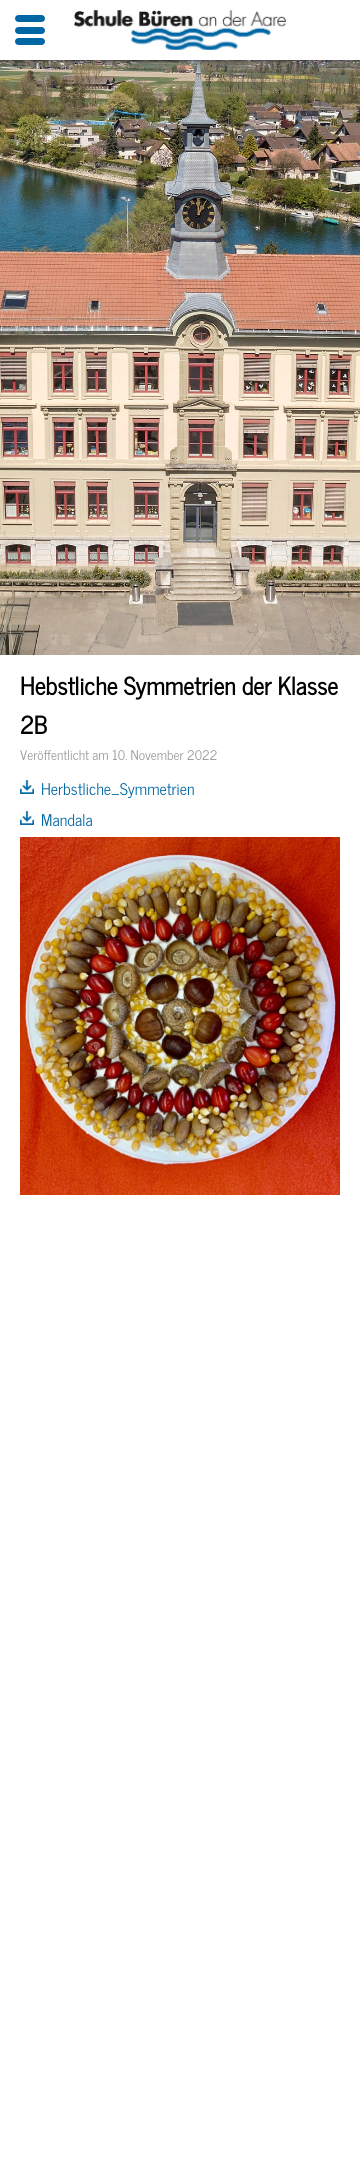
#include <cairo/cairo.h>
#include <math.h>
#include <stddef.h>


static void rounded_rect(cairo_t *cr, double x, double y, double w, double h, double r) {
  cairo_new_sub_path(cr);
  cairo_arc(cr, x + w - r, y + h - r, r, 0, M_PI / 2);
  cairo_arc(cr, x + r, y + h - r, r, M_PI / 2, M_PI);
  cairo_arc(cr, x + r, y + r, r, M_PI, 1.5 * M_PI);
  cairo_arc(cr, x + w - r, y + r, r, 1.5 * M_PI, 2 * M_PI);
  cairo_close_path(cr);
}

static void draw_shadow(cairo_t *cr, double x, double y, double w, double h, double r, double blur, double alpha) {
  cairo_push_group_with_content(cr, CAIRO_CONTENT_ALPHA);
  cairo_set_operator(cr, CAIRO_OPERATOR_SOURCE);
  for (int i = 15; i >= -15 && fmin(w, h) + blur * i / 3 > 0; i -= 2) {
    double e = blur * i / 6;
    cairo_set_source_rgba(cr, 0, 0, 0, alpha * erfc((i - 1) / 8.5) / 2);
    rounded_rect(cr, x - e, y - e, w + 2 * e, h + 2 * e, fmax(0, fmin(r + e + blur * .6, fmin(w, h) / 2 + e)));
    cairo_fill(cr);
  }
  cairo_pattern_t *soft = cairo_pop_group(cr);
  cairo_mask(cr, soft);
  cairo_pattern_destroy(soft);
}

static void draw_image(cairo_t *cr, const char *path, double x, double y, double w, double h) {
  cairo_surface_t *image = cairo_image_surface_create_from_png(path);
  cairo_save(cr);
  cairo_set_source_surface(cr, image, x, y);
  cairo_rectangle(cr, x, y, w, h);
  cairo_fill(cr);
  cairo_restore(cr);
  cairo_surface_destroy(image);
}

static void draw(cairo_t *cr) {
  cairo_set_source_rgb(cr, 1, 1, 1);
  cairo_paint(cr);
  draw_image(cr, "images/2.png", 0, 60, 360, 595);
  cairo_set_source_rgb(cr, 0, 0, 0);
  draw_shadow(cr, 0, 0, 360, 60, 0, 2.5, 1);
  cairo_set_source_rgb(cr, 1, 1, 1);
  cairo_rectangle(cr, 0, 0, 360, 60);
  cairo_fill(cr);
  cairo_set_source_rgb(cr, 0, 103 / 255.0, 165 / 255.0);
  rounded_rect(cr, 15, 15, 30, 7, 3.5);
  cairo_fill(cr);
  rounded_rect(cr, 15, 27, 30, 7, 3.5);
  cairo_fill(cr);
  rounded_rect(cr, 15, 38, 30, 7, 3.5);
  cairo_fill(cr);
  draw_image(cr, "images/1.png", 74, 10, 212, 40);
  draw_image(cr, "images/3.png", 20, 780, 14, 14);
  draw_image(cr, "images/4.png", 20, 811, 14, 14);
  draw_image(cr, "images/5.png", 20, 837, 320, 358);
  cairo_select_font_face(cr, "News Cycle", CAIRO_FONT_SLANT_NORMAL, CAIRO_FONT_WEIGHT_BOLD);
  cairo_set_font_size(cr, 24);
  cairo_set_source_rgb(cr, 0, 0, 0);
  cairo_move_to(cr, 20, 695);
  cairo_show_text(cr, "Hebstliche Symmetrien der Klasse");
  cairo_move_to(cr, 20, 734);
  cairo_show_text(cr, "2B");
  cairo_select_font_face(cr, "News Cycle", CAIRO_FONT_SLANT_NORMAL, CAIRO_FONT_WEIGHT_NORMAL);
  cairo_set_font_size(cr, 13.3);
  cairo_set_source_rgb(cr, 153 / 255.0, 153 / 255.0, 153 / 255.0);
  cairo_move_to(cr, 20, 760);
  cairo_show_text(cr, "Veröffentlicht am 10. November 2022");
  cairo_set_font_size(cr, 16);
  cairo_set_source_rgb(cr, 0, 103 / 255.0, 165 / 255.0);
  cairo_move_to(cr, 41, 795);
  cairo_show_text(cr, "Herbstliche_Symmetrien");
  cairo_move_to(cr, 41, 826);
  cairo_show_text(cr, "Mandala");
}

int main(void) {
  cairo_surface_t *surface = cairo_image_surface_create(CAIRO_FORMAT_RGB24, 360, 2182);
  cairo_t *cr = cairo_create(surface);
  cairo_font_options_t *options = cairo_font_options_create();
  cairo_font_options_set_hint_metrics(options, CAIRO_HINT_METRICS_OFF);
  cairo_font_options_set_hint_style(options, CAIRO_HINT_STYLE_NONE);
  cairo_set_font_options(cr, options);
  cairo_set_miter_limit(cr, 4);
  draw(cr);
  cairo_surface_write_to_png(surface, "out.png");
  cairo_font_options_destroy(options);
  cairo_destroy(cr);
  cairo_surface_destroy(surface);
  return 0;
}
